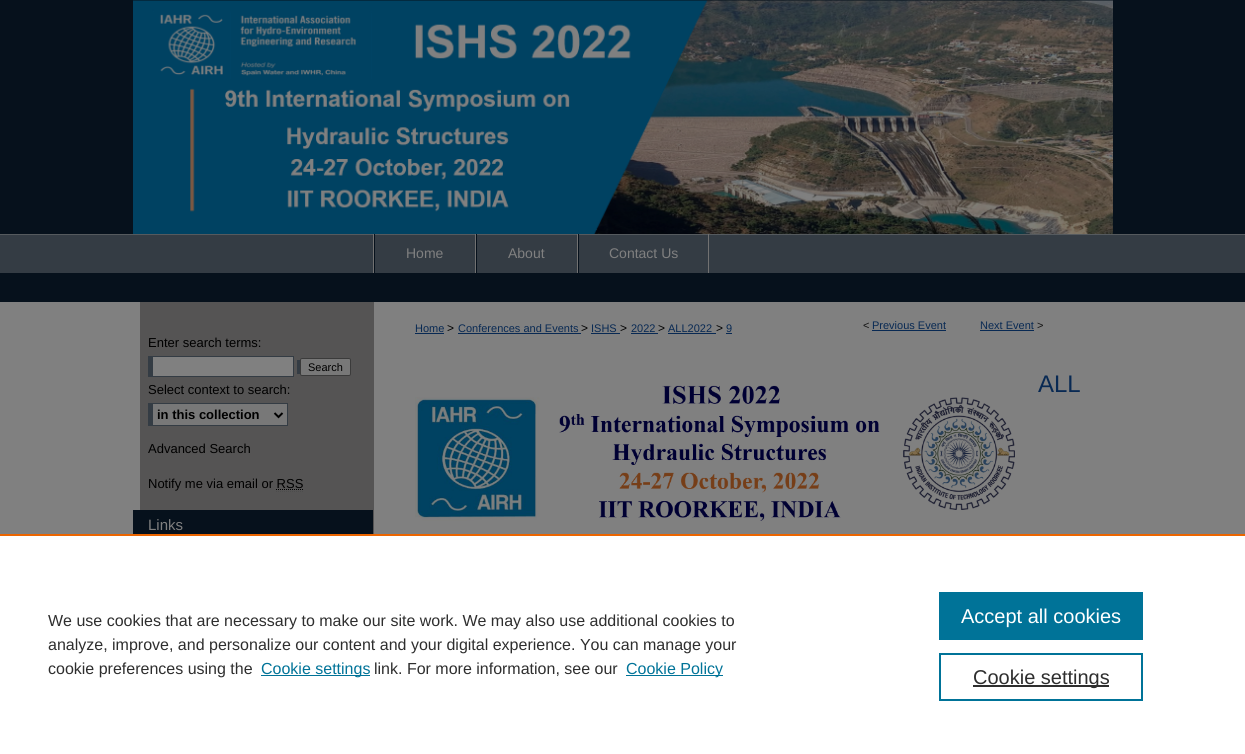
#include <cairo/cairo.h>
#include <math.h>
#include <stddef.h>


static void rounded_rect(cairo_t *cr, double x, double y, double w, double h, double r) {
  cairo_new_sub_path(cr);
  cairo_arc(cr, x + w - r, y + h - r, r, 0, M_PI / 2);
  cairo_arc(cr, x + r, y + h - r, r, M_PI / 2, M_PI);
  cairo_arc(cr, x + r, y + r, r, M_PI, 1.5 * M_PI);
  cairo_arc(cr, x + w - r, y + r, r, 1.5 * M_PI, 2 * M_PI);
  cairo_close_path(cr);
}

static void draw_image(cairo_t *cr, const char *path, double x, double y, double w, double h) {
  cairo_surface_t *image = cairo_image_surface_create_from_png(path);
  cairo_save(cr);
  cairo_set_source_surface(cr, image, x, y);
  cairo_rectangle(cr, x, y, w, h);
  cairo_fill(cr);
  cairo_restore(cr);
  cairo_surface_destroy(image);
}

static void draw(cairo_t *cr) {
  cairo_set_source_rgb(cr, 128 / 255.0, 128 / 255.0, 128 / 255.0);
  cairo_paint(cr);
  draw_image(cr, "images/1.png", 0, 0, 1245, 302);
  draw_image(cr, "images/2.png", 133, 0, 980, 234);
  cairo_set_source_rgb(cr, 113 / 255.0, 113 / 255.0, 113 / 255.0);
  cairo_rectangle(cr, 373, 234, 1, 39);
  cairo_fill(cr);
  cairo_rectangle(cr, 475, 234, 1, 39);
  cairo_fill(cr);
  cairo_set_source_rgb(cr, 6 / 255.0, 17 / 255.0, 28 / 255.0);
  cairo_rectangle(cr, 374, 234, 1, 39);
  cairo_fill(cr);
  cairo_set_source_rgb(cr, 113 / 255.0, 113 / 255.0, 113 / 255.0);
  cairo_rectangle(cr, 577, 234, 1, 39);
  cairo_fill(cr);
  cairo_set_source_rgb(cr, 6 / 255.0, 17 / 255.0, 28 / 255.0);
  cairo_rectangle(cr, 476, 234, 1, 39);
  cairo_fill(cr);
  cairo_set_source_rgb(cr, 113 / 255.0, 113 / 255.0, 113 / 255.0);
  cairo_rectangle(cr, 708, 234, 1, 39);
  cairo_fill(cr);
  cairo_set_source_rgb(cr, 6 / 255.0, 17 / 255.0, 28 / 255.0);
  cairo_rectangle(cr, 578, 234, 1, 39);
  cairo_fill(cr);
  cairo_set_source_rgb(cr, 85 / 255.0, 84 / 255.0, 84 / 255.0);
  cairo_rectangle(cr, 140, 302, 234, 232);
  cairo_fill(cr);
  cairo_set_source_rgb(cr, 52 / 255.0, 60 / 255.0, 68 / 255.0);
  cairo_rectangle(cr, 148, 356, 146, 21);
  cairo_fill(cr);
  cairo_rectangle(cr, 297, 360, 3, 14);
  cairo_fill(cr);
  cairo_set_source_rgb(cr, 128 / 255.0, 128 / 255.0, 128 / 255.0);
  cairo_rectangle(cr, 153, 357, 140, 19);
  cairo_fill(cr);
  cairo_set_source_rgb(cr, 120 / 255.0, 120 / 255.0, 120 / 255.0);
  rounded_rect(cr, 300.5, 358.5, 50, 17, 1.5);
  cairo_fill_preserve(cr);
  cairo_set_source_rgb(cr, 59 / 255.0, 59 / 255.0, 59 / 255.0);
  cairo_set_line_width(cr, 1);
  cairo_stroke(cr);
  cairo_set_source_rgb(cr, 120 / 255.0, 120 / 255.0, 120 / 255.0);
  cairo_rectangle(cr, 153, 404, 134, 21);
  cairo_fill(cr);
  cairo_set_source_rgb(cr, 52 / 255.0, 60 / 255.0, 68 / 255.0);
  cairo_rectangle(cr, 148, 403, 140, 1);
  cairo_fill(cr);
  cairo_rectangle(cr, 287, 403, 1, 23);
  cairo_fill(cr);
  cairo_rectangle(cr, 148, 425, 140, 1);
  cairo_fill(cr);
  cairo_rectangle(cr, 148, 403, 5, 23);
  cairo_fill(cr);
  cairo_new_path(cr);
  cairo_move_to(cr, 274.5, 413);
  cairo_line_to(cr, 278.5, 417);
  cairo_line_to(cr, 282.5, 413);
  cairo_set_source_rgb(cr, 0, 0, 0);
  cairo_set_line_width(cr, 2);
  cairo_stroke(cr);
  cairo_new_path(cr);
  cairo_move_to(cr, 276, 489.5);
  cairo_line_to(cr, 303, 489.5);
  cairo_set_line_width(cr, 1);
  cairo_set_dash(cr, (double[]){1, 1}, 2, 0);
  cairo_stroke(cr);
  cairo_new_path(cr);
  cairo_move_to(cr, 276, 491.5);
  cairo_line_to(cr, 303, 491.5);
  cairo_set_source_rgb(cr, 77 / 255.0, 77 / 255.0, 77 / 255.0);
  cairo_stroke(cr);
  cairo_set_source_rgb(cr, 6 / 255.0, 17 / 255.0, 28 / 255.0);
  cairo_rectangle(cr, 133, 510, 240, 24);
  cairo_fill(cr);
  cairo_set_source_rgb(cr, 8 / 255.0, 41 / 255.0, 83 / 255.0);
  cairo_rectangle(cr, 415, 333, 29, 1);
  cairo_fill(cr);
  cairo_rectangle(cr, 458, 333, 123, 1);
  cairo_fill(cr);
  cairo_rectangle(cr, 591, 333, 29, 1);
  cairo_fill(cr);
  cairo_rectangle(cr, 631, 333, 27, 1);
  cairo_fill(cr);
  cairo_rectangle(cr, 668, 333, 48, 1);
  cairo_fill(cr);
  cairo_rectangle(cr, 726, 333, 6, 1);
  cairo_fill(cr);
  cairo_rectangle(cr, 872, 330, 74, 1);
  cairo_fill(cr);
  cairo_rectangle(cr, 980, 330, 54, 1);
  cairo_fill(cr);
  draw_image(cr, "images/3.png", 415, 385, 600, 136);
  cairo_set_source_rgb(cr, 1, 1, 1);
  cairo_rectangle(cr, 0, 536, 1245, 218);
  cairo_fill(cr);
  cairo_set_source_rgb(cr, 235 / 255.0, 101 / 255.0, 0);
  cairo_rectangle(cr, 0, 534, 1245, 2);
  cairo_fill(cr);
  cairo_set_source_rgb(cr, 0, 115 / 255.0, 152 / 255.0);
  cairo_rectangle(cr, 261, 675, 109, 1);
  cairo_fill(cr);
  cairo_rectangle(cr, 626, 675, 97, 1);
  cairo_fill(cr);
  cairo_rectangle(cr, 939, 592, 204, 48);
  cairo_fill(cr);
  cairo_rectangle(cr, 940, 654, 202, 46);
  cairo_set_line_width(cr, 2);
  cairo_set_dash(cr, NULL, 0, 0);
  cairo_stroke(cr);
  cairo_set_source_rgb(cr, 46 / 255.0, 46 / 255.0, 46 / 255.0);
  cairo_rectangle(cr, 973, 685, 136, 2);
  cairo_fill(cr);
  cairo_select_font_face(cr, "Liberation Sans", CAIRO_FONT_SLANT_NORMAL, CAIRO_FONT_WEIGHT_NORMAL);
  cairo_set_font_size(cr, 14);
  cairo_set_source_rgb(cr, 128 / 255.0, 128 / 255.0, 128 / 255.0);
  cairo_move_to(cr, 406, 258);
  cairo_show_text(cr, "Home");
  cairo_move_to(cr, 508, 258);
  cairo_show_text(cr, "About");
  cairo_move_to(cr, 609, 258);
  cairo_show_text(cr, "Contact Us");
  cairo_set_font_size(cr, 13);
  cairo_set_source_rgb(cr, 0, 0, 0);
  cairo_move_to(cr, 148, 347);
  cairo_show_text(cr, "Enter search terms:");
  cairo_set_font_size(cr, 11);
  cairo_move_to(cr, 308, 371);
  cairo_show_text(cr, "Search");
  cairo_set_font_size(cr, 13);
  cairo_move_to(cr, 148, 394);
  cairo_show_text(cr, "Select context to search:");
  cairo_select_font_face(cr, "Liberation Sans", CAIRO_FONT_SLANT_NORMAL, CAIRO_FONT_WEIGHT_BOLD);
  cairo_move_to(cr, 157, 419);
  cairo_show_text(cr, "in this collection");
  cairo_select_font_face(cr, "Liberation Sans", CAIRO_FONT_SLANT_NORMAL, CAIRO_FONT_WEIGHT_NORMAL);
  cairo_move_to(cr, 148, 453);
  cairo_show_text(cr, "Advanced Search");
  cairo_move_to(cr, 148, 488);
  cairo_show_text(cr, "Notify me via email or RSS");
  cairo_set_font_size(cr, 15);
  cairo_set_source_rgb(cr, 128 / 255.0, 128 / 255.0, 128 / 255.0);
  cairo_move_to(cr, 148, 530);
  cairo_show_text(cr, "Links");
  cairo_set_font_size(cr, 11);
  cairo_set_source_rgb(cr, 8 / 255.0, 41 / 255.0, 83 / 255.0);
  cairo_move_to(cr, 415, 332);
  cairo_show_text(cr, "Home");
  cairo_set_font_size(cr, 12);
  cairo_set_source_rgb(cr, 0, 0, 0);
  cairo_move_to(cr, 447, 332);
  cairo_show_text(cr, ">");
  cairo_set_font_size(cr, 11);
  cairo_set_source_rgb(cr, 8 / 255.0, 41 / 255.0, 83 / 255.0);
  cairo_move_to(cr, 458, 332);
  cairo_show_text(cr, "Conferences and Events");
  cairo_set_font_size(cr, 12);
  cairo_set_source_rgb(cr, 0, 0, 0);
  cairo_move_to(cr, 581, 332);
  cairo_show_text(cr, ">");
  cairo_set_font_size(cr, 11);
  cairo_set_source_rgb(cr, 8 / 255.0, 41 / 255.0, 83 / 255.0);
  cairo_move_to(cr, 591, 332);
  cairo_show_text(cr, "ISHS");
  cairo_set_font_size(cr, 12);
  cairo_set_source_rgb(cr, 0, 0, 0);
  cairo_move_to(cr, 620, 332);
  cairo_show_text(cr, ">");
  cairo_set_font_size(cr, 11);
  cairo_set_source_rgb(cr, 8 / 255.0, 41 / 255.0, 83 / 255.0);
  cairo_move_to(cr, 631, 332);
  cairo_show_text(cr, "2022");
  cairo_set_font_size(cr, 12);
  cairo_set_source_rgb(cr, 0, 0, 0);
  cairo_move_to(cr, 658, 332);
  cairo_show_text(cr, ">");
  cairo_set_font_size(cr, 11);
  cairo_set_source_rgb(cr, 8 / 255.0, 41 / 255.0, 83 / 255.0);
  cairo_move_to(cr, 668, 332);
  cairo_show_text(cr, "ALL2022");
  cairo_set_font_size(cr, 12);
  cairo_set_source_rgb(cr, 0, 0, 0);
  cairo_move_to(cr, 716, 332);
  cairo_show_text(cr, ">");
  cairo_set_font_size(cr, 11);
  cairo_set_source_rgb(cr, 8 / 255.0, 41 / 255.0, 83 / 255.0);
  cairo_move_to(cr, 726, 332);
  cairo_show_text(cr, "9");
  cairo_set_source_rgb(cr, 17 / 255.0, 17 / 255.0, 17 / 255.0);
  cairo_move_to(cr, 863, 329);
  cairo_show_text(cr, "<");
  cairo_set_source_rgb(cr, 8 / 255.0, 41 / 255.0, 83 / 255.0);
  cairo_move_to(cr, 872, 329);
  cairo_show_text(cr, "Previous Event");
  cairo_move_to(cr, 980, 329);
  cairo_show_text(cr, "Next Event");
  cairo_set_source_rgb(cr, 17 / 255.0, 17 / 255.0, 17 / 255.0);
  cairo_move_to(cr, 1037, 329);
  cairo_show_text(cr, ">");
  cairo_set_font_size(cr, 24);
  cairo_set_source_rgb(cr, 8 / 255.0, 41 / 255.0, 83 / 255.0);
  cairo_move_to(cr, 1038, 392);
  cairo_show_text(cr, "ALL");
  cairo_set_font_size(cr, 16);
  cairo_set_source_rgb(cr, 46 / 255.0, 46 / 255.0, 46 / 255.0);
  cairo_move_to(cr, 48, 626);
  cairo_show_text(cr, "We use cookies that are necessary to make our site work. We may also use additional cookies to");
  cairo_move_to(cr, 48, 650);
  cairo_show_text(cr, "analyze, improve, and personalize our content and your digital experience. You can manage your");
  cairo_move_to(cr, 48, 674);
  cairo_show_text(cr, "cookie preferences using the");
  cairo_set_source_rgb(cr, 0, 115 / 255.0, 152 / 255.0);
  cairo_move_to(cr, 261, 674);
  cairo_show_text(cr, "Cookie settings");
  cairo_set_source_rgb(cr, 46 / 255.0, 46 / 255.0, 46 / 255.0);
  cairo_move_to(cr, 374, 674);
  cairo_show_text(cr, "link. For more information, see our");
  cairo_set_source_rgb(cr, 0, 115 / 255.0, 152 / 255.0);
  cairo_move_to(cr, 626, 674);
  cairo_show_text(cr, "Cookie Policy");
  cairo_set_font_size(cr, 20);
  cairo_set_source_rgb(cr, 1, 1, 1);
  cairo_move_to(cr, 961, 623);
  cairo_show_text(cr, "Accept all cookies");
  cairo_set_source_rgb(cr, 46 / 255.0, 46 / 255.0, 46 / 255.0);
  cairo_move_to(cr, 973, 684);
  cairo_show_text(cr, "Cookie settings");
}

int main(void) {
  cairo_surface_t *surface = cairo_image_surface_create(CAIRO_FORMAT_RGB24, 1245, 754);
  cairo_t *cr = cairo_create(surface);
  cairo_font_options_t *options = cairo_font_options_create();
  cairo_font_options_set_hint_metrics(options, CAIRO_HINT_METRICS_OFF);
  cairo_font_options_set_hint_style(options, CAIRO_HINT_STYLE_NONE);
  cairo_set_font_options(cr, options);
  cairo_set_miter_limit(cr, 4);
  draw(cr);
  cairo_surface_write_to_png(surface, "out.png");
  cairo_font_options_destroy(options);
  cairo_destroy(cr);
  cairo_surface_destroy(surface);
  return 0;
}
